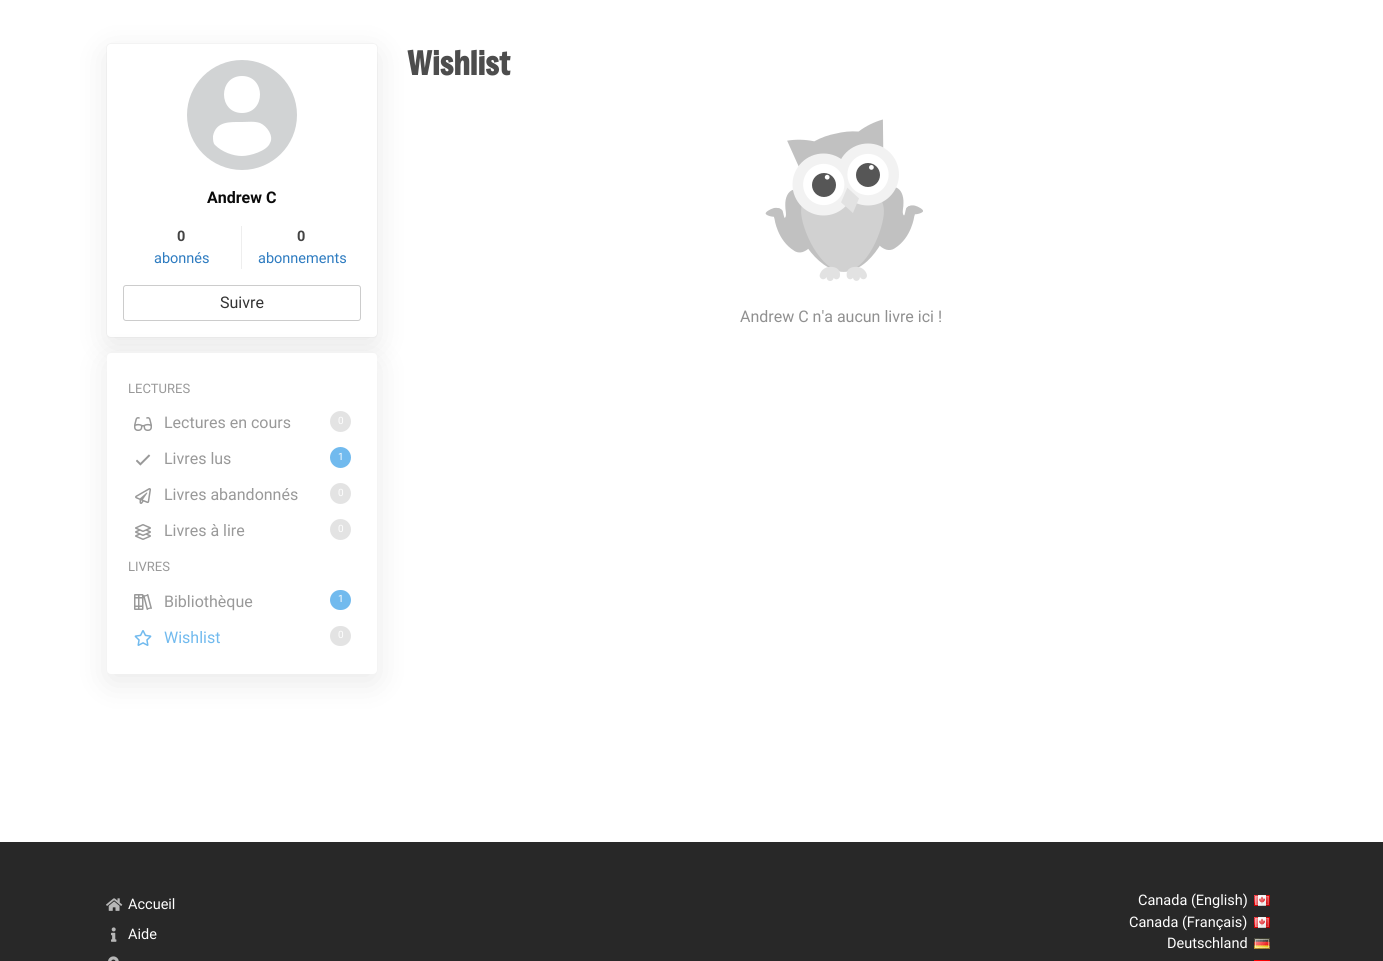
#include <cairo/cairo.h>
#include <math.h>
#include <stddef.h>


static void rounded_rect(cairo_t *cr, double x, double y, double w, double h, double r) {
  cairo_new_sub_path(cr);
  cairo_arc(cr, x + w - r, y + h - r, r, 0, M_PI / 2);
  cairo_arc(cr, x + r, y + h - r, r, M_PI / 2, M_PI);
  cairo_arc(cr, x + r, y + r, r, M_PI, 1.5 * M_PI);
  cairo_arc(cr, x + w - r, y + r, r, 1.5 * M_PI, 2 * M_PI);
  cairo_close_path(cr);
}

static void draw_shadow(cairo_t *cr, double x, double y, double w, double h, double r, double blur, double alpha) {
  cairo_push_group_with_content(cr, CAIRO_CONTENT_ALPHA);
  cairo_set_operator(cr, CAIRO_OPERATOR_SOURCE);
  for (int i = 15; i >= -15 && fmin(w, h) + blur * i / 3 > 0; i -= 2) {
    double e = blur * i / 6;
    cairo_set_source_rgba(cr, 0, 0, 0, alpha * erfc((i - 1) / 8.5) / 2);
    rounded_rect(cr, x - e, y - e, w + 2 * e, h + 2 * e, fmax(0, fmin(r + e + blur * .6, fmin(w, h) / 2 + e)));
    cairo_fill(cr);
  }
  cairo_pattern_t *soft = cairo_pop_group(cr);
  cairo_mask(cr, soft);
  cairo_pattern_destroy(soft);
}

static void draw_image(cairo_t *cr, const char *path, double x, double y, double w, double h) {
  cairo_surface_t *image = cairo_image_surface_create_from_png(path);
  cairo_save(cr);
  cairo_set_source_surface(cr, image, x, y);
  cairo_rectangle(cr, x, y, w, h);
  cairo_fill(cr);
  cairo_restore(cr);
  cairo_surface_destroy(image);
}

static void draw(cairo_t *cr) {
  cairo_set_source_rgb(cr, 1, 1, 1);
  cairo_paint(cr);
  rounded_rect(cr, 106.5, 43.5, 271, 294, 4.5);
  cairo_set_source_rgb(cr, 249 / 255.0, 249 / 255.0, 249 / 255.0);
  cairo_set_line_width(cr, 1);
  cairo_stroke(cr);
  cairo_set_source_rgb(cr, 10 / 255.0, 10 / 255.0, 10 / 255.0);
  draw_shadow(cr, 109, 54, 266, 289, 2, 16, 0.1);
  cairo_set_source_rgb(cr, 1, 1, 1);
  rounded_rect(cr, 107, 44, 270, 293, 4);
  cairo_fill(cr);
  cairo_set_source_rgb(cr, 209 / 255.0, 211 / 255.0, 212 / 255.0);
  cairo_arc(cr, 242, 115, 55, 0, 2 * M_PI);
  cairo_fill(cr);
  cairo_set_source_rgb(cr, 1, 1, 1);
  cairo_new_path(cr);
  cairo_move_to(cr, 242, 76);
  cairo_curve_to(cr, 266, 76, 266, 113, 242, 113);
  cairo_curve_to(cr, 218, 113, 218, 76, 242, 76);
  cairo_close_path(cr);
  cairo_move_to(cr, 242, 156);
  cairo_curve_to(cr, 233, 156, 222, 152, 215, 145);
  cairo_curve_to(cr, 213, 143, 213, 140, 213, 136);
  cairo_curve_to(cr, 216, 121, 230, 122, 242, 122);
  cairo_curve_to(cr, 248, 122, 254, 121, 260, 123);
  cairo_curve_to(cr, 267, 126, 274, 136, 270, 143);
  cairo_curve_to(cr, 267, 151, 250, 156, 242, 156);
  cairo_close_path(cr);
  cairo_fill(cr);
  cairo_set_source_rgb(cr, 238 / 255.0, 238 / 255.0, 238 / 255.0);
  cairo_rectangle(cr, 241, 226, 1, 43);
  cairo_fill(cr);
  cairo_set_source_rgb(cr, 10 / 255.0, 10 / 255.0, 10 / 255.0);
  draw_shadow(cr, 109, 363, 266, 317, 2, 16, 0.1);
  rounded_rect(cr, 123.5, 285.5, 237, 35, 2.5);
  cairo_set_source_rgb(cr, 204 / 255.0, 204 / 255.0, 204 / 255.0);
  cairo_stroke(cr);
  cairo_set_source_rgb(cr, 1, 1, 1);
  rounded_rect(cr, 107, 353, 270, 321, 4);
  cairo_fill(cr);
  draw_image(cr, "images/1.png", 134, 417, 18, 14);
  cairo_set_source_rgb(cr, 227 / 255.0, 227 / 255.0, 227 / 255.0);
  cairo_arc(cr, 340.5, 421.5, 10.5, 0, 2 * M_PI);
  cairo_fill(cr);
  draw_image(cr, "images/2.png", 136, 454, 15, 12);
  cairo_set_source_rgb(cr, 113 / 255.0, 186 / 255.0, 238 / 255.0);
  cairo_arc(cr, 340.5, 457.5, 10.5, 0, 2 * M_PI);
  cairo_fill(cr);
  draw_image(cr, "images/3.png", 135, 488, 16, 16);
  cairo_set_source_rgb(cr, 227 / 255.0, 227 / 255.0, 227 / 255.0);
  cairo_arc(cr, 340.5, 493.5, 10.5, 0, 2 * M_PI);
  cairo_fill(cr);
  draw_image(cr, "images/4.png", 135, 524, 16, 16);
  cairo_arc(cr, 340.5, 529.5, 10.5, 0, 2 * M_PI);
  cairo_fill(cr);
  draw_image(cr, "images/5.png", 134, 594, 18, 16);
  cairo_set_source_rgb(cr, 113 / 255.0, 186 / 255.0, 238 / 255.0);
  rounded_rect(cr, 330, 590, 21, 20, 10);
  cairo_fill(cr);
  draw_image(cr, "images/6.png", 134, 630, 18, 16);
  cairo_set_source_rgb(cr, 227 / 255.0, 227 / 255.0, 227 / 255.0);
  rounded_rect(cr, 330, 626, 21, 20, 10);
  cairo_fill(cr);
  draw_image(cr, "images/7.png", 765, 119, 158, 162);
  cairo_set_source_rgb(cr, 40 / 255.0, 40 / 255.0, 40 / 255.0);
  cairo_rectangle(cr, 0, 842, 1383, 119);
  cairo_fill(cr);
  draw_image(cr, "images/8.png", 106, 898, 17, 13);
  draw_image(cr, "images/9.png", 111, 927, 6, 15);
  draw_image(cr, "images/10.png", 108, 956, 11, 5);
  draw_image(cr, "images/11.png", 1254, 895, 16, 11);
  draw_image(cr, "images/11.png", 1254, 917, 16, 11);
  draw_image(cr, "images/12.png", 1254, 938, 16, 11);
  draw_image(cr, "images/13.png", 1254, 960, 16, 1);
  cairo_select_font_face(cr, "Roboto", CAIRO_FONT_SLANT_NORMAL, CAIRO_FONT_WEIGHT_BOLD);
  cairo_set_font_size(cr, 16);
  cairo_set_source_rgb(cr, 10 / 255.0, 10 / 255.0, 10 / 255.0);
  cairo_move_to(cr, 207, 203);
  cairo_show_text(cr, "Andrew C");
  cairo_set_font_size(cr, 14.5);
  cairo_set_source_rgb(cr, 68 / 255.0, 68 / 255.0, 68 / 255.0);
  cairo_move_to(cr, 177, 241);
  cairo_show_text(cr, "0");
  cairo_select_font_face(cr, "Roboto", CAIRO_FONT_SLANT_NORMAL, CAIRO_FONT_WEIGHT_NORMAL);
  cairo_set_source_rgb(cr, 45 / 255.0, 123 / 255.0, 192 / 255.0);
  cairo_move_to(cr, 154, 263);
  cairo_show_text(cr, "abonnés");
  cairo_select_font_face(cr, "Roboto", CAIRO_FONT_SLANT_NORMAL, CAIRO_FONT_WEIGHT_BOLD);
  cairo_set_source_rgb(cr, 68 / 255.0, 68 / 255.0, 68 / 255.0);
  cairo_move_to(cr, 297, 241);
  cairo_show_text(cr, "0");
  cairo_select_font_face(cr, "Roboto", CAIRO_FONT_SLANT_NORMAL, CAIRO_FONT_WEIGHT_NORMAL);
  cairo_set_source_rgb(cr, 45 / 255.0, 123 / 255.0, 192 / 255.0);
  cairo_move_to(cr, 258, 263);
  cairo_show_text(cr, "abonnements");
  cairo_set_font_size(cr, 16);
  cairo_set_source_rgb(cr, 51 / 255.0, 51 / 255.0, 51 / 255.0);
  cairo_move_to(cr, 220, 308);
  cairo_show_text(cr, "Suivre");
  cairo_set_font_size(cr, 13);
  cairo_set_source_rgb(cr, 153 / 255.0, 153 / 255.0, 153 / 255.0);
  cairo_move_to(cr, 128, 393);
  cairo_show_text(cr, "LECTURES");
  cairo_set_font_size(cr, 16);
  cairo_move_to(cr, 164, 428);
  cairo_show_text(cr, "Lectures en cours");
  cairo_set_font_size(cr, 10);
  cairo_set_source_rgb(cr, 254 / 255.0, 254 / 255.0, 254 / 255.0);
  cairo_move_to(cr, 338, 424);
  cairo_show_text(cr, "0");
  cairo_set_font_size(cr, 16);
  cairo_set_source_rgb(cr, 153 / 255.0, 153 / 255.0, 153 / 255.0);
  cairo_move_to(cr, 164, 464);
  cairo_show_text(cr, "Livres lus");
  cairo_set_font_size(cr, 10);
  cairo_set_source_rgb(cr, 254 / 255.0, 254 / 255.0, 254 / 255.0);
  cairo_move_to(cr, 338, 460);
  cairo_show_text(cr, "1");
  cairo_set_font_size(cr, 16);
  cairo_set_source_rgb(cr, 153 / 255.0, 153 / 255.0, 153 / 255.0);
  cairo_move_to(cr, 164, 500);
  cairo_show_text(cr, "Livres abandonnés");
  cairo_set_font_size(cr, 10);
  cairo_set_source_rgb(cr, 254 / 255.0, 254 / 255.0, 254 / 255.0);
  cairo_move_to(cr, 338, 496);
  cairo_show_text(cr, "0");
  cairo_set_font_size(cr, 16);
  cairo_set_source_rgb(cr, 153 / 255.0, 153 / 255.0, 153 / 255.0);
  cairo_move_to(cr, 164, 536);
  cairo_show_text(cr, "Livres à lire");
  cairo_set_font_size(cr, 10);
  cairo_set_source_rgb(cr, 254 / 255.0, 254 / 255.0, 254 / 255.0);
  cairo_move_to(cr, 338, 532);
  cairo_show_text(cr, "0");
  cairo_set_font_size(cr, 13);
  cairo_set_source_rgb(cr, 153 / 255.0, 153 / 255.0, 153 / 255.0);
  cairo_move_to(cr, 128, 571);
  cairo_show_text(cr, "LIVRES");
  cairo_set_font_size(cr, 16);
  cairo_move_to(cr, 164, 607);
  cairo_show_text(cr, "Bibliothèque");
  cairo_set_font_size(cr, 10);
  cairo_set_source_rgb(cr, 254 / 255.0, 254 / 255.0, 254 / 255.0);
  cairo_move_to(cr, 338, 602);
  cairo_show_text(cr, "1");
  cairo_set_font_size(cr, 16);
  cairo_set_source_rgb(cr, 113 / 255.0, 186 / 255.0, 238 / 255.0);
  cairo_move_to(cr, 164, 643);
  cairo_show_text(cr, "Wishlist");
  cairo_set_font_size(cr, 10);
  cairo_set_source_rgb(cr, 254 / 255.0, 254 / 255.0, 254 / 255.0);
  cairo_move_to(cr, 338, 638);
  cairo_show_text(cr, "0");
  cairo_select_font_face(cr, "Freeman", CAIRO_FONT_SLANT_NORMAL, CAIRO_FONT_WEIGHT_BOLD);
  cairo_set_font_size(cr, 32);
  cairo_set_source_rgb(cr, 77 / 255.0, 77 / 255.0, 77 / 255.0);
  cairo_move_to(cr, 407, 75);
  cairo_show_text(cr, "Wishlist");
  cairo_select_font_face(cr, "Roboto", CAIRO_FONT_SLANT_NORMAL, CAIRO_FONT_WEIGHT_NORMAL);
  cairo_set_font_size(cr, 16);
  cairo_set_source_rgb(cr, 144 / 255.0, 144 / 255.0, 144 / 255.0);
  cairo_move_to(cr, 740, 322);
  cairo_show_text(cr, "Andrew C n'a aucun livre ici !");
  cairo_set_font_size(cr, 14.5);
  cairo_set_source_rgb(cr, 254 / 255.0, 254 / 255.0, 254 / 255.0);
  cairo_move_to(cr, 128, 909);
  cairo_show_text(cr, "Accueil");
  cairo_move_to(cr, 128, 939);
  cairo_show_text(cr, "Aide");
  cairo_move_to(cr, 1138, 905);
  cairo_show_text(cr, "Canada (English)");
  cairo_move_to(cr, 1129, 927);
  cairo_show_text(cr, "Canada (Français)");
  cairo_move_to(cr, 1167, 948);
  cairo_show_text(cr, "Deutschland");
}

int main(void) {
  cairo_surface_t *surface = cairo_image_surface_create(CAIRO_FORMAT_RGB24, 1383, 961);
  cairo_t *cr = cairo_create(surface);
  cairo_font_options_t *options = cairo_font_options_create();
  cairo_font_options_set_hint_metrics(options, CAIRO_HINT_METRICS_OFF);
  cairo_font_options_set_hint_style(options, CAIRO_HINT_STYLE_NONE);
  cairo_set_font_options(cr, options);
  cairo_set_miter_limit(cr, 4);
  draw(cr);
  cairo_surface_write_to_png(surface, "out.png");
  cairo_font_options_destroy(options);
  cairo_destroy(cr);
  cairo_surface_destroy(surface);
  return 0;
}
